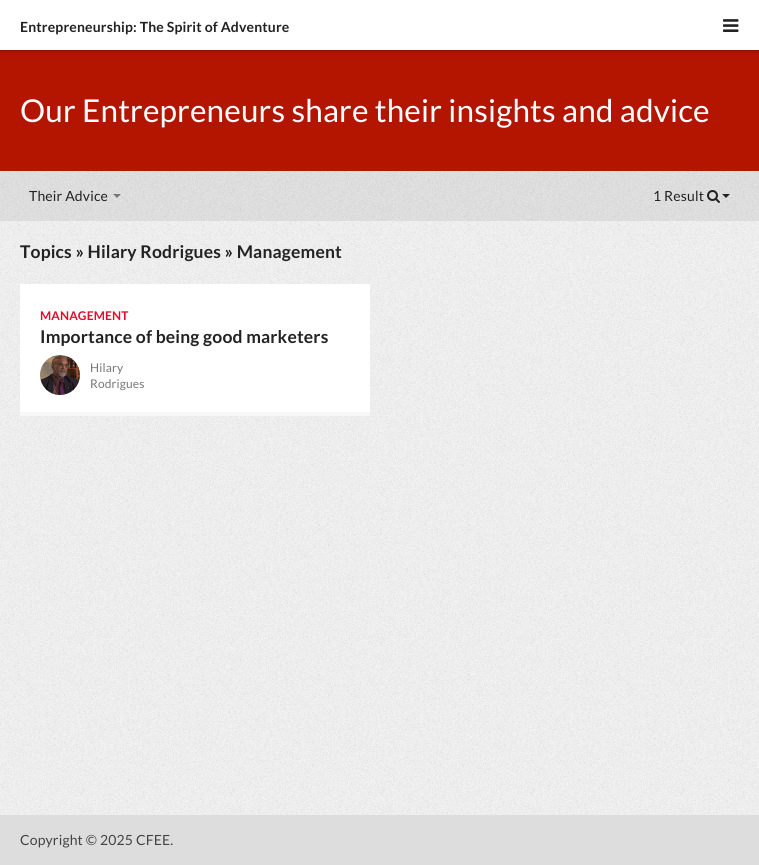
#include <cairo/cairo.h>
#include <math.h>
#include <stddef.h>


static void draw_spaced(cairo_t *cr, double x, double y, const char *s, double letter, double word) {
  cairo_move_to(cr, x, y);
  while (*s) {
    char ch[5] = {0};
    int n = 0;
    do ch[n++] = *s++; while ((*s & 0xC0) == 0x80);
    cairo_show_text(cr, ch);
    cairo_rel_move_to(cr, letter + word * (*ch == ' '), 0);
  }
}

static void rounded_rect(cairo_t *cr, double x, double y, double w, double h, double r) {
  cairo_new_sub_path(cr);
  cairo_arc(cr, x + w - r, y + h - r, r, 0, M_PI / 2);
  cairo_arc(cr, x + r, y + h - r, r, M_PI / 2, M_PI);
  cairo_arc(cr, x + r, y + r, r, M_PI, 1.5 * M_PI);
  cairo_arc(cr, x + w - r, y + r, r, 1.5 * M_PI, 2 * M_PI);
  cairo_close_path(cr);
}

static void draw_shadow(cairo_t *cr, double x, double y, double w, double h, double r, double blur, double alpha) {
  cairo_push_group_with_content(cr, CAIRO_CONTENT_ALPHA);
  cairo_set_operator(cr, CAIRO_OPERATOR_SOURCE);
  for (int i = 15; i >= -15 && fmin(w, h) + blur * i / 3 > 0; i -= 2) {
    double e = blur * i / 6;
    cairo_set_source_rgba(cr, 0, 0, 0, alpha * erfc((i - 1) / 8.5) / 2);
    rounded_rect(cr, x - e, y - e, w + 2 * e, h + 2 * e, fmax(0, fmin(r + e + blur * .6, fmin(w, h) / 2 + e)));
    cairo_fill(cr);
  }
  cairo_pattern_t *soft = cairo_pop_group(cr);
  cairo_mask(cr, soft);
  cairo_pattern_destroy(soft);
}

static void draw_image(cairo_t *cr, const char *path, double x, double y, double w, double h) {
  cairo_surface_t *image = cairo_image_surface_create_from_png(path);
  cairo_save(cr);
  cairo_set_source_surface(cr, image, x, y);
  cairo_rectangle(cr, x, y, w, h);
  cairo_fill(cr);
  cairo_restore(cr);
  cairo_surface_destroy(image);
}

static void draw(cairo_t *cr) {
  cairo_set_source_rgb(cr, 1, 1, 1);
  cairo_paint(cr);
  draw_image(cr, "images/1.png", 0, 171, 759, 644);
  cairo_set_source_rgb(cr, 179 / 255.0, 21 / 255.0, 0);
  cairo_rectangle(cr, 0, 50, 759, 121);
  cairo_fill(cr);
  cairo_set_source_rgb(cr, 0, 0, 0);
  draw_shadow(cr, 0, 0, 759, 50, 0, 2.5, 0.4);
  cairo_set_source_rgb(cr, 1, 1, 1);
  cairo_rectangle(cr, 0, 0, 759, 50);
  cairo_fill(cr);
  draw_image(cr, "images/2.png", 723, 19, 16, 13);
  cairo_set_source_rgba(cr, 0, 0, 0, 0.07);
  cairo_rectangle(cr, 0, 171, 759, 50);
  cairo_fill(cr);
  cairo_set_source_rgb(cr, 119 / 255.0, 119 / 255.0, 119 / 255.0);
  cairo_new_path(cr);
  cairo_move_to(cr, 113, 194);
  cairo_line_to(cr, 121, 194);
  cairo_line_to(cr, 117, 198);
  cairo_close_path(cr);
  cairo_fill(cr);
  draw_image(cr, "images/3.png", 707, 190, 13, 13);
  cairo_set_source_rgb(cr, 34 / 255.0, 34 / 255.0, 34 / 255.0);
  cairo_new_path(cr);
  cairo_move_to(cr, 722, 194);
  cairo_line_to(cr, 730, 194);
  cairo_line_to(cr, 726, 198);
  cairo_close_path(cr);
  cairo_fill(cr);
  cairo_set_source_rgb(cr, 1, 1, 1);
  cairo_rectangle(cr, 20, 284, 350, 128);
  cairo_fill(cr);
  cairo_set_source_rgb(cr, 247 / 255.0, 247 / 255.0, 247 / 255.0);
  cairo_rectangle(cr, 20, 412, 350, 4);
  cairo_fill(cr);
  draw_image(cr, "images/4.png", 40, 355, 40, 40);
  cairo_set_source_rgb(cr, 221 / 255.0, 221 / 255.0, 221 / 255.0);
  cairo_rectangle(cr, 0, 815, 759, 50);
  cairo_fill(cr);
  cairo_select_font_face(cr, "Lato", CAIRO_FONT_SLANT_NORMAL, CAIRO_FONT_WEIGHT_BOLD);
  cairo_set_font_size(cr, 14);
  cairo_set_source_rgb(cr, 34 / 255.0, 34 / 255.0, 34 / 255.0);
  draw_spaced(cr, 20, 32, "Entrepreneurship: The Spirit of Adventure", 0.15, 0);
  cairo_select_font_face(cr, "Lato", CAIRO_FONT_SLANT_NORMAL, CAIRO_FONT_WEIGHT_NORMAL);
  cairo_set_font_size(cr, 31.5);
  cairo_set_source_rgb(cr, 1, 1, 1);
  draw_spaced(cr, 20, 122, "Our Entrepreneurs share their insights and advice", 0.15, 0);
  cairo_set_font_size(cr, 14);
  cairo_set_source_rgb(cr, 34 / 255.0, 34 / 255.0, 34 / 255.0);
  draw_spaced(cr, 29, 201, "Their Advice", 0.15, 0);
  draw_spaced(cr, 653, 201, "1 Result", 0.15, 0);
  cairo_select_font_face(cr, "Lato", CAIRO_FONT_SLANT_NORMAL, CAIRO_FONT_WEIGHT_BOLD);
  cairo_set_font_size(cr, 17.5);
  draw_spaced(cr, 20, 258, "Topics » Hilary Rodrigues » Management", 0.15, 0);
  cairo_set_font_size(cr, 12);
  cairo_set_source_rgb(cr, 229 / 255.0, 8 / 255.0, 43 / 255.0);
  draw_spaced(cr, 40, 320, "MANAGEMENT", 0.15, 0);
  cairo_set_font_size(cr, 17.5);
  cairo_set_source_rgb(cr, 34 / 255.0, 34 / 255.0, 34 / 255.0);
  draw_spaced(cr, 40, 343, "Importance of being good marketers", 0.15, 0);
  cairo_select_font_face(cr, "Lato", CAIRO_FONT_SLANT_NORMAL, CAIRO_FONT_WEIGHT_NORMAL);
  cairo_set_font_size(cr, 12);
  cairo_set_source_rgb(cr, 119 / 255.0, 119 / 255.0, 119 / 255.0);
  draw_spaced(cr, 90, 372, "Hilary", 0.15, 0);
  draw_spaced(cr, 90, 388, "Rodrigues", 0.15, 0);
  cairo_set_font_size(cr, 14);
  cairo_set_source_rgb(cr, 68 / 255.0, 68 / 255.0, 68 / 255.0);
  draw_spaced(cr, 20, 845, "Copyright © 2025 CFEE.", 0.15, 0);
}

int main(void) {
  cairo_surface_t *surface = cairo_image_surface_create(CAIRO_FORMAT_RGB24, 759, 865);
  cairo_t *cr = cairo_create(surface);
  cairo_font_options_t *options = cairo_font_options_create();
  cairo_font_options_set_hint_metrics(options, CAIRO_HINT_METRICS_OFF);
  cairo_font_options_set_hint_style(options, CAIRO_HINT_STYLE_NONE);
  cairo_set_font_options(cr, options);
  cairo_set_miter_limit(cr, 4);
  draw(cr);
  cairo_surface_write_to_png(surface, "out.png");
  cairo_font_options_destroy(options);
  cairo_destroy(cr);
  cairo_surface_destroy(surface);
  return 0;
}
